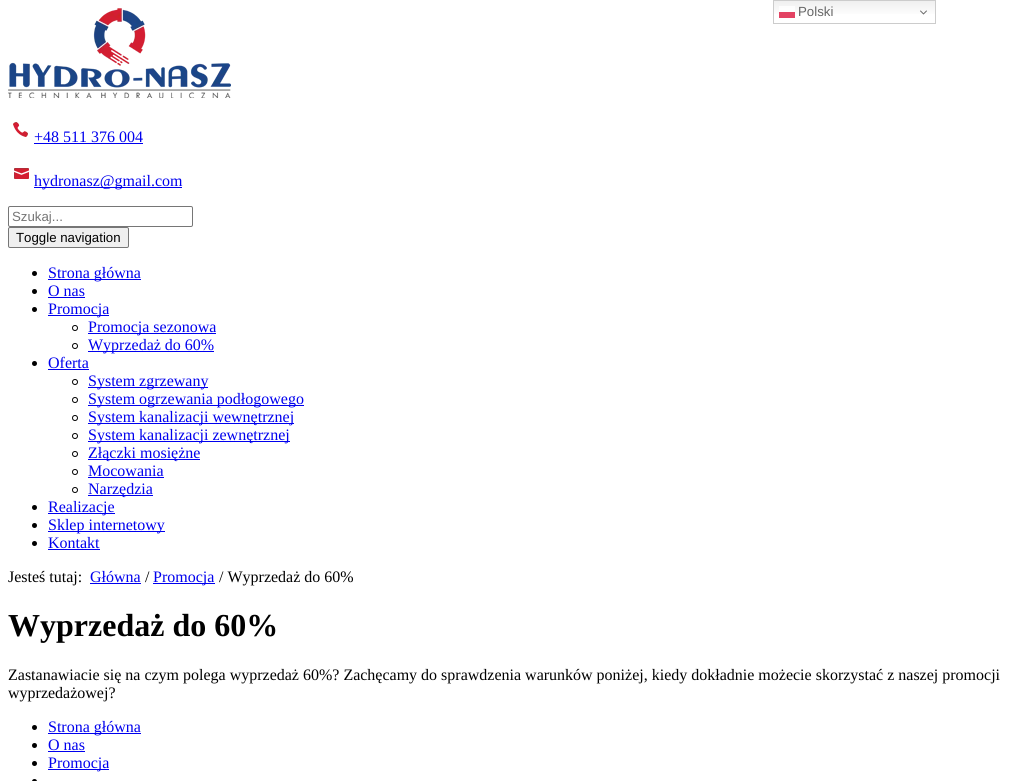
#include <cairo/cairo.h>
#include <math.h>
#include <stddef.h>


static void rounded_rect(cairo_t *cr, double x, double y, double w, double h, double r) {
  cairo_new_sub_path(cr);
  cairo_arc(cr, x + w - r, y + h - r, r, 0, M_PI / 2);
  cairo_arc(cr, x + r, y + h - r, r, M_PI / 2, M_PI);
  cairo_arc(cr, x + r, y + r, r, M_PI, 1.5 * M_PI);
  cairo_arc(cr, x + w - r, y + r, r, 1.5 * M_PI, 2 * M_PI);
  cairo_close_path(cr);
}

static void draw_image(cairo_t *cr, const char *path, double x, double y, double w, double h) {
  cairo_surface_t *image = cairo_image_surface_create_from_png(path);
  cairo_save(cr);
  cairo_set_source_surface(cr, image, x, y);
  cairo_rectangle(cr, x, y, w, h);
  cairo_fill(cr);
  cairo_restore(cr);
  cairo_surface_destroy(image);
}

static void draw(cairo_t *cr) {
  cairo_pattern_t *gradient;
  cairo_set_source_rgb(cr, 1, 1, 1);
  cairo_paint(cr);
  gradient = cairo_pattern_create_linear(855, 0, 855, 24);
  cairo_pattern_add_color_stop_rgba(gradient, 0, 239 / 255.0, 239 / 255.0, 239 / 255.0, 1);
  cairo_pattern_add_color_stop_rgba(gradient, 0.7, 1, 1, 1, 1);
  cairo_set_source(cr, gradient);
  cairo_pattern_destroy(gradient);
  cairo_rectangle(cr, 774, 1, 161, 13);
  cairo_fill(cr);
  gradient = cairo_pattern_create_linear(855, 0, 855, 24);
  cairo_pattern_add_color_stop_rgba(gradient, 0, 252 / 255.0, 252 / 255.0, 252 / 255.0, 1);
  cairo_pattern_add_color_stop_rgba(gradient, 0.7, 1, 1, 1, 1);
  cairo_set_source(cr, gradient);
  cairo_pattern_destroy(gradient);
  cairo_rectangle(cr, 779, 6, 16, 6);
  cairo_fill(cr);
  cairo_rectangle(cr, 773.5, 0.5, 162, 23);
  cairo_set_source_rgb(cr, 204 / 255.0, 204 / 255.0, 204 / 255.0);
  cairo_set_line_width(cr, 1);
  cairo_stroke(cr);
  cairo_set_source_rgb(cr, 227 / 255.0, 67 / 255.0, 99 / 255.0);
  cairo_rectangle(cr, 779, 12, 16, 6);
  cairo_fill(cr);
  draw_image(cr, "images/1.png", 920, 10, 7, 5);
  draw_image(cr, "images/2.png", 8, 8, 223, 90);
  draw_image(cr, "images/3.png", 13, 122, 15, 15);
  cairo_set_source_rgb(cr, 0, 0, 238 / 255.0);
  cairo_rectangle(cr, 34, 143, 109, 1);
  cairo_fill(cr);
  draw_image(cr, "images/4.png", 14, 168, 15, 11);
  cairo_rectangle(cr, 34, 187, 148, 1);
  cairo_fill(cr);
  rounded_rect(cr, 8.5, 206.5, 184, 20, 1.5);
  cairo_set_source_rgb(cr, 118 / 255.0, 118 / 255.0, 118 / 255.0);
  cairo_stroke(cr);
  cairo_set_source_rgb(cr, 239 / 255.0, 239 / 255.0, 239 / 255.0);
  rounded_rect(cr, 8.5, 227.5, 120, 20, 1.5);
  cairo_fill_preserve(cr);
  cairo_set_source_rgb(cr, 118 / 255.0, 118 / 255.0, 118 / 255.0);
  cairo_stroke(cr);
  cairo_set_source_rgb(cr, 0, 0, 0);
  cairo_arc(cr, 34.5, 273.5, 2.5, 0, 2 * M_PI);
  cairo_fill(cr);
  cairo_set_source_rgb(cr, 0, 0, 238 / 255.0);
  cairo_rectangle(cr, 48, 279, 93, 1);
  cairo_fill(cr);
  cairo_set_source_rgb(cr, 0, 0, 0);
  cairo_arc(cr, 34.5, 291.5, 2.5, 0, 2 * M_PI);
  cairo_fill(cr);
  cairo_set_source_rgb(cr, 0, 0, 238 / 255.0);
  cairo_rectangle(cr, 48, 297, 37, 1);
  cairo_fill(cr);
  cairo_set_source_rgb(cr, 0, 0, 0);
  cairo_arc(cr, 34.5, 309.5, 2.5, 0, 2 * M_PI);
  cairo_fill(cr);
  cairo_set_source_rgb(cr, 0, 0, 238 / 255.0);
  cairo_rectangle(cr, 48, 315, 61, 1);
  cairo_fill(cr);
  cairo_arc(cr, 75, 328, 2.5, 0, 2 * M_PI);
  cairo_set_source_rgb(cr, 0, 0, 0);
  cairo_stroke(cr);
  cairo_set_source_rgb(cr, 0, 0, 238 / 255.0);
  cairo_rectangle(cr, 88, 333, 128, 1);
  cairo_fill(cr);
  cairo_arc(cr, 75, 346, 2.5, 0, 2 * M_PI);
  cairo_set_source_rgb(cr, 0, 0, 0);
  cairo_stroke(cr);
  cairo_set_source_rgb(cr, 0, 0, 238 / 255.0);
  cairo_rectangle(cr, 88, 351, 126, 1);
  cairo_fill(cr);
  cairo_set_source_rgb(cr, 0, 0, 0);
  cairo_arc(cr, 34.5, 363.5, 2.5, 0, 2 * M_PI);
  cairo_fill(cr);
  cairo_set_source_rgb(cr, 0, 0, 238 / 255.0);
  cairo_rectangle(cr, 48, 369, 41, 1);
  cairo_fill(cr);
  cairo_arc(cr, 75, 382, 2.5, 0, 2 * M_PI);
  cairo_set_source_rgb(cr, 0, 0, 0);
  cairo_stroke(cr);
  cairo_set_source_rgb(cr, 0, 0, 238 / 255.0);
  cairo_rectangle(cr, 88, 387, 120, 1);
  cairo_fill(cr);
  cairo_arc(cr, 75, 400, 2.5, 0, 2 * M_PI);
  cairo_set_source_rgb(cr, 0, 0, 0);
  cairo_stroke(cr);
  cairo_set_source_rgb(cr, 0, 0, 238 / 255.0);
  cairo_rectangle(cr, 88, 405, 216, 1);
  cairo_fill(cr);
  cairo_arc(cr, 75, 418, 2.5, 0, 2 * M_PI);
  cairo_set_source_rgb(cr, 0, 0, 0);
  cairo_stroke(cr);
  cairo_set_source_rgb(cr, 0, 0, 238 / 255.0);
  cairo_rectangle(cr, 88, 423, 206, 1);
  cairo_fill(cr);
  cairo_arc(cr, 75, 436, 2.5, 0, 2 * M_PI);
  cairo_set_source_rgb(cr, 0, 0, 0);
  cairo_stroke(cr);
  cairo_set_source_rgb(cr, 0, 0, 238 / 255.0);
  cairo_rectangle(cr, 88, 441, 202, 1);
  cairo_fill(cr);
  cairo_arc(cr, 75, 454, 2.5, 0, 2 * M_PI);
  cairo_set_source_rgb(cr, 0, 0, 0);
  cairo_stroke(cr);
  cairo_set_source_rgb(cr, 0, 0, 238 / 255.0);
  cairo_rectangle(cr, 88, 459, 112, 1);
  cairo_fill(cr);
  cairo_arc(cr, 75, 472, 2.5, 0, 2 * M_PI);
  cairo_set_source_rgb(cr, 0, 0, 0);
  cairo_stroke(cr);
  cairo_set_source_rgb(cr, 0, 0, 238 / 255.0);
  cairo_rectangle(cr, 88, 477, 76, 1);
  cairo_fill(cr);
  cairo_arc(cr, 75, 490, 2.5, 0, 2 * M_PI);
  cairo_set_source_rgb(cr, 0, 0, 0);
  cairo_stroke(cr);
  cairo_set_source_rgb(cr, 0, 0, 238 / 255.0);
  cairo_rectangle(cr, 88, 495, 65, 1);
  cairo_fill(cr);
  cairo_set_source_rgb(cr, 0, 0, 0);
  cairo_arc(cr, 34.5, 507.5, 2.5, 0, 2 * M_PI);
  cairo_fill(cr);
  cairo_set_source_rgb(cr, 0, 0, 238 / 255.0);
  cairo_rectangle(cr, 48, 513, 67, 1);
  cairo_fill(cr);
  cairo_set_source_rgb(cr, 0, 0, 0);
  cairo_arc(cr, 34.5, 525.5, 2.5, 0, 2 * M_PI);
  cairo_fill(cr);
  cairo_set_source_rgb(cr, 0, 0, 238 / 255.0);
  cairo_rectangle(cr, 48, 531, 117, 1);
  cairo_fill(cr);
  cairo_set_source_rgb(cr, 0, 0, 0);
  cairo_arc(cr, 34.5, 543.5, 2.5, 0, 2 * M_PI);
  cairo_fill(cr);
  cairo_set_source_rgb(cr, 0, 0, 238 / 255.0);
  cairo_rectangle(cr, 48, 549, 52, 1);
  cairo_fill(cr);
  cairo_rectangle(cr, 90, 583, 51, 1);
  cairo_fill(cr);
  cairo_rectangle(cr, 153, 583, 62, 1);
  cairo_fill(cr);
  cairo_set_source_rgb(cr, 0, 0, 0);
  cairo_arc(cr, 34.5, 727.5, 2.5, 0, 2 * M_PI);
  cairo_fill(cr);
  cairo_set_source_rgb(cr, 0, 0, 238 / 255.0);
  cairo_rectangle(cr, 48, 733, 93, 1);
  cairo_fill(cr);
  cairo_set_source_rgb(cr, 0, 0, 0);
  cairo_arc(cr, 34.5, 745.5, 2.5, 0, 2 * M_PI);
  cairo_fill(cr);
  cairo_set_source_rgb(cr, 0, 0, 238 / 255.0);
  cairo_rectangle(cr, 48, 751, 37, 1);
  cairo_fill(cr);
  cairo_set_source_rgb(cr, 0, 0, 0);
  cairo_arc(cr, 34.5, 763.5, 2.5, 0, 2 * M_PI);
  cairo_fill(cr);
  cairo_set_source_rgb(cr, 0, 0, 238 / 255.0);
  cairo_rectangle(cr, 48, 769, 61, 1);
  cairo_fill(cr);
  cairo_set_source_rgb(cr, 0, 0, 0);
  cairo_arc(cr, 34.5, 781.5, 2.5, 0, 2 * M_PI);
  cairo_fill(cr);
  cairo_select_font_face(cr, "Liberation Sans", CAIRO_FONT_SLANT_NORMAL, CAIRO_FONT_WEIGHT_NORMAL);
  cairo_set_font_size(cr, 13.25);
  cairo_set_source_rgb(cr, 102 / 255.0, 102 / 255.0, 102 / 255.0);
  cairo_move_to(cr, 798, 16);
  cairo_show_text(cr, "Polski");
  cairo_select_font_face(cr, "Liberation Serif", CAIRO_FONT_SLANT_NORMAL, CAIRO_FONT_WEIGHT_NORMAL);
  cairo_set_font_size(cr, 16);
  cairo_set_source_rgb(cr, 0, 0, 238 / 255.0);
  cairo_move_to(cr, 34, 142);
  cairo_show_text(cr, "+48 511 376 004");
  cairo_move_to(cr, 34, 186);
  cairo_show_text(cr, "hydronasz@gmail.com");
  cairo_select_font_face(cr, "Liberation Sans", CAIRO_FONT_SLANT_NORMAL, CAIRO_FONT_WEIGHT_NORMAL);
  cairo_set_font_size(cr, 13.25);
  cairo_set_source_rgb(cr, 117 / 255.0, 117 / 255.0, 117 / 255.0);
  cairo_move_to(cr, 12, 221);
  cairo_show_text(cr, "Szukaj...");
  cairo_set_source_rgb(cr, 0, 0, 0);
  cairo_move_to(cr, 16, 242);
  cairo_show_text(cr, "Toggle navigation");
  cairo_select_font_face(cr, "Liberation Serif", CAIRO_FONT_SLANT_NORMAL, CAIRO_FONT_WEIGHT_NORMAL);
  cairo_set_font_size(cr, 16);
  cairo_set_source_rgb(cr, 0, 0, 238 / 255.0);
  cairo_move_to(cr, 48, 278);
  cairo_show_text(cr, "Strona główna");
  cairo_move_to(cr, 48, 296);
  cairo_show_text(cr, "O nas");
  cairo_move_to(cr, 48, 314);
  cairo_show_text(cr, "Promocja");
  cairo_move_to(cr, 88, 332);
  cairo_show_text(cr, "Promocja sezonowa");
  cairo_move_to(cr, 88, 350);
  cairo_show_text(cr, "Wyprzedaż do 60%");
  cairo_move_to(cr, 48, 368);
  cairo_show_text(cr, "Oferta");
  cairo_move_to(cr, 88, 386);
  cairo_show_text(cr, "System zgrzewany");
  cairo_move_to(cr, 88, 404);
  cairo_show_text(cr, "System ogrzewania podłogowego");
  cairo_move_to(cr, 88, 422);
  cairo_show_text(cr, "System kanalizacji wewnętrznej");
  cairo_move_to(cr, 88, 440);
  cairo_show_text(cr, "System kanalizacji zewnętrznej");
  cairo_move_to(cr, 88, 458);
  cairo_show_text(cr, "Złączki mosiężne");
  cairo_move_to(cr, 88, 476);
  cairo_show_text(cr, "Mocowania");
  cairo_move_to(cr, 88, 494);
  cairo_show_text(cr, "Narzędzia");
  cairo_move_to(cr, 48, 512);
  cairo_show_text(cr, "Realizacje");
  cairo_move_to(cr, 48, 530);
  cairo_show_text(cr, "Sklep internetowy");
  cairo_move_to(cr, 48, 548);
  cairo_show_text(cr, "Kontakt");
  cairo_set_source_rgb(cr, 0, 0, 0);
  cairo_move_to(cr, 8, 582);
  cairo_show_text(cr, "Jesteś tutaj:");
  cairo_set_source_rgb(cr, 0, 0, 238 / 255.0);
  cairo_move_to(cr, 90, 582);
  cairo_show_text(cr, "Główna");
  cairo_set_source_rgb(cr, 0, 0, 0);
  cairo_move_to(cr, 145, 582);
  cairo_show_text(cr, "/");
  cairo_set_source_rgb(cr, 0, 0, 238 / 255.0);
  cairo_move_to(cr, 153, 582);
  cairo_show_text(cr, "Promocja");
  cairo_set_source_rgb(cr, 0, 0, 0);
  cairo_move_to(cr, 219, 582);
  cairo_show_text(cr, "/ Wyprzedaż do 60%");
  cairo_select_font_face(cr, "Liberation Serif", CAIRO_FONT_SLANT_NORMAL, CAIRO_FONT_WEIGHT_BOLD);
  cairo_set_font_size(cr, 32);
  cairo_move_to(cr, 8, 636);
  cairo_show_text(cr, "Wyprzedaż do 60%");
  cairo_select_font_face(cr, "Liberation Serif", CAIRO_FONT_SLANT_NORMAL, CAIRO_FONT_WEIGHT_NORMAL);
  cairo_set_font_size(cr, 16);
  cairo_move_to(cr, 8, 680);
  cairo_show_text(cr, "Zastanawiacie się na czym polega wyprzedaż 60%? Zachęcamy do sprawdzenia warunków poniżej, kiedy dokładnie możecie skorzystać z naszej promocji");
  cairo_move_to(cr, 8, 698);
  cairo_show_text(cr, "wyprzedażowej?");
  cairo_set_source_rgb(cr, 0, 0, 238 / 255.0);
  cairo_move_to(cr, 48, 732);
  cairo_show_text(cr, "Strona główna");
  cairo_move_to(cr, 48, 750);
  cairo_show_text(cr, "O nas");
  cairo_move_to(cr, 48, 768);
  cairo_show_text(cr, "Promocja");
}

int main(void) {
  cairo_surface_t *surface = cairo_image_surface_create(CAIRO_FORMAT_RGB24, 1017, 781);
  cairo_t *cr = cairo_create(surface);
  cairo_font_options_t *options = cairo_font_options_create();
  cairo_font_options_set_hint_metrics(options, CAIRO_HINT_METRICS_OFF);
  cairo_font_options_set_hint_style(options, CAIRO_HINT_STYLE_NONE);
  cairo_set_font_options(cr, options);
  cairo_set_miter_limit(cr, 4);
  draw(cr);
  cairo_surface_write_to_png(surface, "out.png");
  cairo_font_options_destroy(options);
  cairo_destroy(cr);
  cairo_surface_destroy(surface);
  return 0;
}
